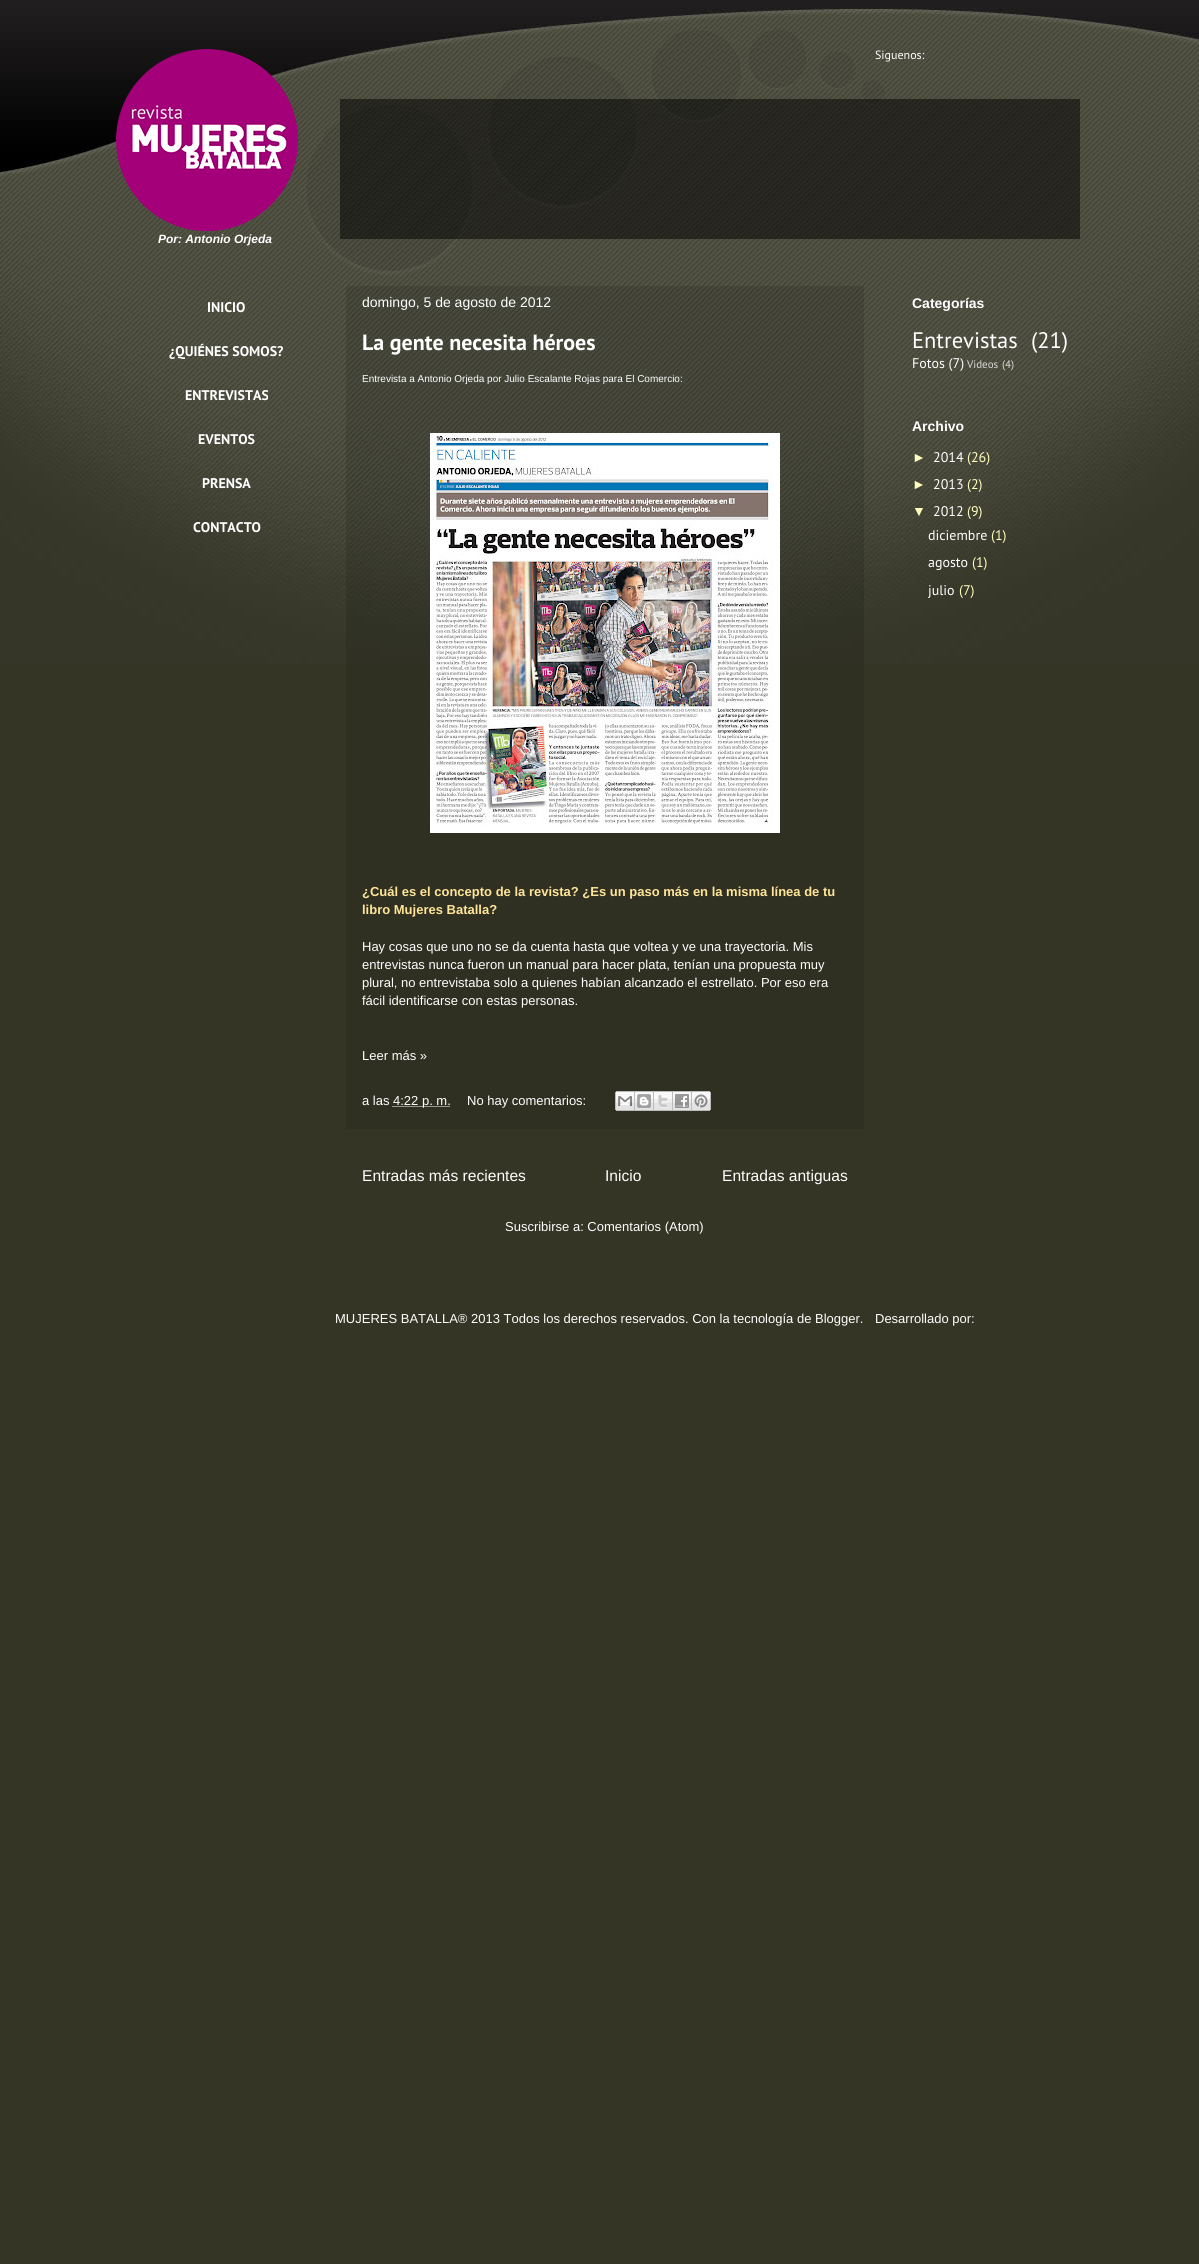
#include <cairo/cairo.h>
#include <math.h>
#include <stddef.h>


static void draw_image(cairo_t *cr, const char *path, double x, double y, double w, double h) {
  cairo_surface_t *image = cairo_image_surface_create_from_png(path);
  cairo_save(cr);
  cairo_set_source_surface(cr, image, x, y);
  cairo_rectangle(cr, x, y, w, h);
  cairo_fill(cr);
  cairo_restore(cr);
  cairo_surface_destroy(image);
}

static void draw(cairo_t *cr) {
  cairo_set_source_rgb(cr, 53 / 255.0, 53 / 255.0, 38 / 255.0);
  cairo_paint(cr);
  draw_image(cr, "images/1.png", 0, 0, 1199, 664);
  draw_image(cr, "images/2.png", 116, 49, 182, 182);
  cairo_set_source_rgba(cr, 0, 0, 0, 0.5);
  cairo_rectangle(cr, 340, 99, 740, 140);
  cairo_fill(cr);
  cairo_set_source_rgba(cr, 0, 0, 0, 0.12);
  cairo_rectangle(cr, 346, 286, 518, 843);
  cairo_fill(cr);
  draw_image(cr, "images/3.png", 430, 433, 350, 400);
  cairo_new_path(cr);
  cairo_move_to(cr, 392.5, 1106.5);
  cairo_line_to(cr, 450.5, 1106.5);
  cairo_set_source_rgb(cr, 1, 1, 1);
  cairo_set_line_width(cr, 1);
  cairo_set_dash(cr, (double[]){1, 1}, 2, 0);
  cairo_stroke(cr);
  draw_image(cr, "images/4.png", 615, 1091, 20, 20);
  draw_image(cr, "images/5.png", 635, 1091, 19, 20);
  draw_image(cr, "images/6.png", 654, 1091, 19, 20);
  draw_image(cr, "images/7.png", 673, 1091, 19, 20);
  draw_image(cr, "images/8.png", 692, 1091, 19, 20);
  cairo_select_font_face(cr, "PT Sans", CAIRO_FONT_SLANT_NORMAL, CAIRO_FONT_WEIGHT_NORMAL);
  cairo_set_font_size(cr, 12);
  cairo_move_to(cr, 875, 59);
  cairo_show_text(cr, "Siguenos:");
  cairo_select_font_face(cr, "Liberation Sans", CAIRO_FONT_SLANT_ITALIC, CAIRO_FONT_WEIGHT_BOLD);
  cairo_move_to(cr, 158, 243);
  cairo_show_text(cr, "Por: Antonio Orjeda");
  cairo_select_font_face(cr, "PT Sans", CAIRO_FONT_SLANT_NORMAL, CAIRO_FONT_WEIGHT_BOLD);
  cairo_set_font_size(cr, 14);
  cairo_move_to(cr, 207, 312);
  cairo_show_text(cr, "INICIO");
  cairo_move_to(cr, 169, 356);
  cairo_show_text(cr, "¿QUIÉNES SOMOS?");
  cairo_move_to(cr, 185, 400);
  cairo_show_text(cr, "ENTREVISTAS");
  cairo_move_to(cr, 198, 444);
  cairo_show_text(cr, "EVENTOS");
  cairo_move_to(cr, 202, 488);
  cairo_show_text(cr, "PRENSA");
  cairo_move_to(cr, 193, 532);
  cairo_show_text(cr, "CONTACTO");
  cairo_select_font_face(cr, "Liberation Sans", CAIRO_FONT_SLANT_NORMAL, CAIRO_FONT_WEIGHT_NORMAL);
  cairo_move_to(cr, 362, 307);
  cairo_show_text(cr, "domingo, 5 de agosto de 2012");
  cairo_select_font_face(cr, "PT Sans", CAIRO_FONT_SLANT_NORMAL, CAIRO_FONT_WEIGHT_BOLD);
  cairo_set_font_size(cr, 22);
  cairo_move_to(cr, 362, 350);
  cairo_show_text(cr, "La gente necesita héroes");
  cairo_select_font_face(cr, "Liberation Sans", CAIRO_FONT_SLANT_NORMAL, CAIRO_FONT_WEIGHT_NORMAL);
  cairo_set_font_size(cr, 10);
  cairo_move_to(cr, 362, 382);
  cairo_show_text(cr, "Entrevista a Antonio Orjeda por Julio Escalante Rojas para El Comercio:");
  cairo_select_font_face(cr, "Liberation Sans", CAIRO_FONT_SLANT_NORMAL, CAIRO_FONT_WEIGHT_BOLD);
  cairo_set_font_size(cr, 13);
  cairo_set_source_rgb(cr, 1, 229 / 255.0, 153 / 255.0);
  cairo_move_to(cr, 362, 896);
  cairo_show_text(cr, "¿Cuál es el concepto de la revista? ¿Es un paso más en la misma línea de tu");
  cairo_move_to(cr, 362, 914);
  cairo_show_text(cr, "libro Mujeres Batalla?");
  cairo_select_font_face(cr, "Liberation Sans", CAIRO_FONT_SLANT_NORMAL, CAIRO_FONT_WEIGHT_NORMAL);
  cairo_set_source_rgb(cr, 1, 1, 1);
  cairo_move_to(cr, 362, 951);
  cairo_show_text(cr, "Hay cosas que uno no se da cuenta hasta que voltea y ve una trayectoria. Mis");
  cairo_move_to(cr, 362, 969);
  cairo_show_text(cr, "entrevistas nunca fueron un manual para hacer plata, tenían una propuesta muy");
  cairo_move_to(cr, 362, 987);
  cairo_show_text(cr, "plural, no entrevistaba solo a quienes habían alcanzado el estrellato. Por eso era");
  cairo_move_to(cr, 362, 1005);
  cairo_show_text(cr, "fácil identificarse con estas personas.");
  cairo_move_to(cr, 362, 1060);
  cairo_show_text(cr, "Leer más »");
  cairo_move_to(cr, 362, 1105);
  cairo_show_text(cr, "a las");
  cairo_move_to(cr, 393, 1105);
  cairo_show_text(cr, "4:22 p. m.");
  cairo_move_to(cr, 467, 1105);
  cairo_show_text(cr, "No hay comentarios:");
  cairo_set_font_size(cr, 15.6);
  cairo_move_to(cr, 362, 1181);
  cairo_show_text(cr, "Entradas más recientes");
  cairo_move_to(cr, 605, 1181);
  cairo_show_text(cr, "Inicio");
  cairo_move_to(cr, 722, 1181);
  cairo_show_text(cr, "Entradas antiguas");
  cairo_set_font_size(cr, 13);
  cairo_move_to(cr, 505, 1231);
  cairo_show_text(cr, "Suscribirse a: Comentarios (Atom)");
  cairo_select_font_face(cr, "Liberation Sans", CAIRO_FONT_SLANT_NORMAL, CAIRO_FONT_WEIGHT_BOLD);
  cairo_set_font_size(cr, 14);
  cairo_move_to(cr, 912, 308);
  cairo_show_text(cr, "Categorías");
  cairo_select_font_face(cr, "PT Sans", CAIRO_FONT_SLANT_NORMAL, CAIRO_FONT_WEIGHT_NORMAL);
  cairo_set_font_size(cr, 22.5);
  cairo_move_to(cr, 912, 348);
  cairo_show_text(cr, "Entrevistas");
  cairo_move_to(cr, 1031, 348);
  cairo_show_text(cr, "(21)");
  cairo_set_font_size(cr, 14);
  cairo_move_to(cr, 912, 368);
  cairo_show_text(cr, "Fotos (7)");
  cairo_set_font_size(cr, 11);
  cairo_set_source_rgb(cr, 219 / 255.0, 219 / 255.0, 217 / 255.0);
  cairo_move_to(cr, 967, 368);
  cairo_show_text(cr, "Videos");
  cairo_move_to(cr, 1002, 368);
  cairo_show_text(cr, "(4)");
  cairo_select_font_face(cr, "Liberation Sans", CAIRO_FONT_SLANT_NORMAL, CAIRO_FONT_WEIGHT_BOLD);
  cairo_set_font_size(cr, 14);
  cairo_set_source_rgb(cr, 1, 1, 1);
  cairo_move_to(cr, 912, 431);
  cairo_show_text(cr, "Archivo");
  cairo_select_font_face(cr, "Liberation Sans", CAIRO_FONT_SLANT_NORMAL, CAIRO_FONT_WEIGHT_NORMAL);
  cairo_set_source_rgb(cr, 1, 1, 191 / 255.0);
  cairo_move_to(cr, 912, 462);
  cairo_show_text(cr, "►");
  cairo_select_font_face(cr, "PT Sans", CAIRO_FONT_SLANT_NORMAL, CAIRO_FONT_WEIGHT_NORMAL);
  cairo_set_source_rgb(cr, 1, 1, 1);
  cairo_move_to(cr, 933, 462);
  cairo_show_text(cr, "2014");
  cairo_set_source_rgb(cr, 1, 1, 191 / 255.0);
  cairo_move_to(cr, 967, 462);
  cairo_show_text(cr, "(26)");
  cairo_select_font_face(cr, "Liberation Sans", CAIRO_FONT_SLANT_NORMAL, CAIRO_FONT_WEIGHT_NORMAL);
  cairo_move_to(cr, 912, 489);
  cairo_show_text(cr, "►");
  cairo_select_font_face(cr, "PT Sans", CAIRO_FONT_SLANT_NORMAL, CAIRO_FONT_WEIGHT_NORMAL);
  cairo_set_source_rgb(cr, 1, 1, 1);
  cairo_move_to(cr, 933, 489);
  cairo_show_text(cr, "2013");
  cairo_set_source_rgb(cr, 1, 1, 191 / 255.0);
  cairo_move_to(cr, 967, 489);
  cairo_show_text(cr, "(2)");
  cairo_select_font_face(cr, "Liberation Sans", CAIRO_FONT_SLANT_NORMAL, CAIRO_FONT_WEIGHT_NORMAL);
  cairo_move_to(cr, 912, 516);
  cairo_show_text(cr, "▼");
  cairo_select_font_face(cr, "PT Sans", CAIRO_FONT_SLANT_NORMAL, CAIRO_FONT_WEIGHT_NORMAL);
  cairo_set_source_rgb(cr, 1, 1, 1);
  cairo_move_to(cr, 933, 516);
  cairo_show_text(cr, "2012");
  cairo_set_source_rgb(cr, 1, 1, 191 / 255.0);
  cairo_move_to(cr, 967, 516);
  cairo_show_text(cr, "(9)");
  cairo_set_source_rgb(cr, 1, 1, 1);
  cairo_move_to(cr, 928, 540);
  cairo_show_text(cr, "diciembre");
  cairo_set_source_rgb(cr, 1, 1, 191 / 255.0);
  cairo_move_to(cr, 991, 540);
  cairo_show_text(cr, "(1)");
  cairo_set_source_rgb(cr, 1, 1, 1);
  cairo_move_to(cr, 928, 567);
  cairo_show_text(cr, "agosto");
  cairo_set_source_rgb(cr, 1, 1, 191 / 255.0);
  cairo_move_to(cr, 972, 567);
  cairo_show_text(cr, "(1)");
  cairo_set_source_rgb(cr, 1, 1, 1);
  cairo_move_to(cr, 928, 595);
  cairo_show_text(cr, "julio");
  cairo_set_source_rgb(cr, 1, 1, 191 / 255.0);
  cairo_move_to(cr, 959, 595);
  cairo_show_text(cr, "(7)");
  cairo_select_font_face(cr, "Liberation Sans", CAIRO_FONT_SLANT_NORMAL, CAIRO_FONT_WEIGHT_NORMAL);
  cairo_set_font_size(cr, 13);
  cairo_set_source_rgb(cr, 1, 1, 1);
  cairo_move_to(cr, 335, 1323);
  cairo_show_text(cr, "MUJERES BATALLA® 2013 Todos los derechos reservados. Con la tecnología de Blogger.");
  cairo_move_to(cr, 875, 1323);
  cairo_show_text(cr, "Desarrollado por:");
}

int main(void) {
  cairo_surface_t *surface = cairo_image_surface_create(CAIRO_FORMAT_RGB24, 1199, 2264);
  cairo_t *cr = cairo_create(surface);
  cairo_font_options_t *options = cairo_font_options_create();
  cairo_font_options_set_hint_metrics(options, CAIRO_HINT_METRICS_OFF);
  cairo_font_options_set_hint_style(options, CAIRO_HINT_STYLE_NONE);
  cairo_set_font_options(cr, options);
  cairo_set_miter_limit(cr, 4);
  draw(cr);
  cairo_surface_write_to_png(surface, "out.png");
  cairo_font_options_destroy(options);
  cairo_destroy(cr);
  cairo_surface_destroy(surface);
  return 0;
}
